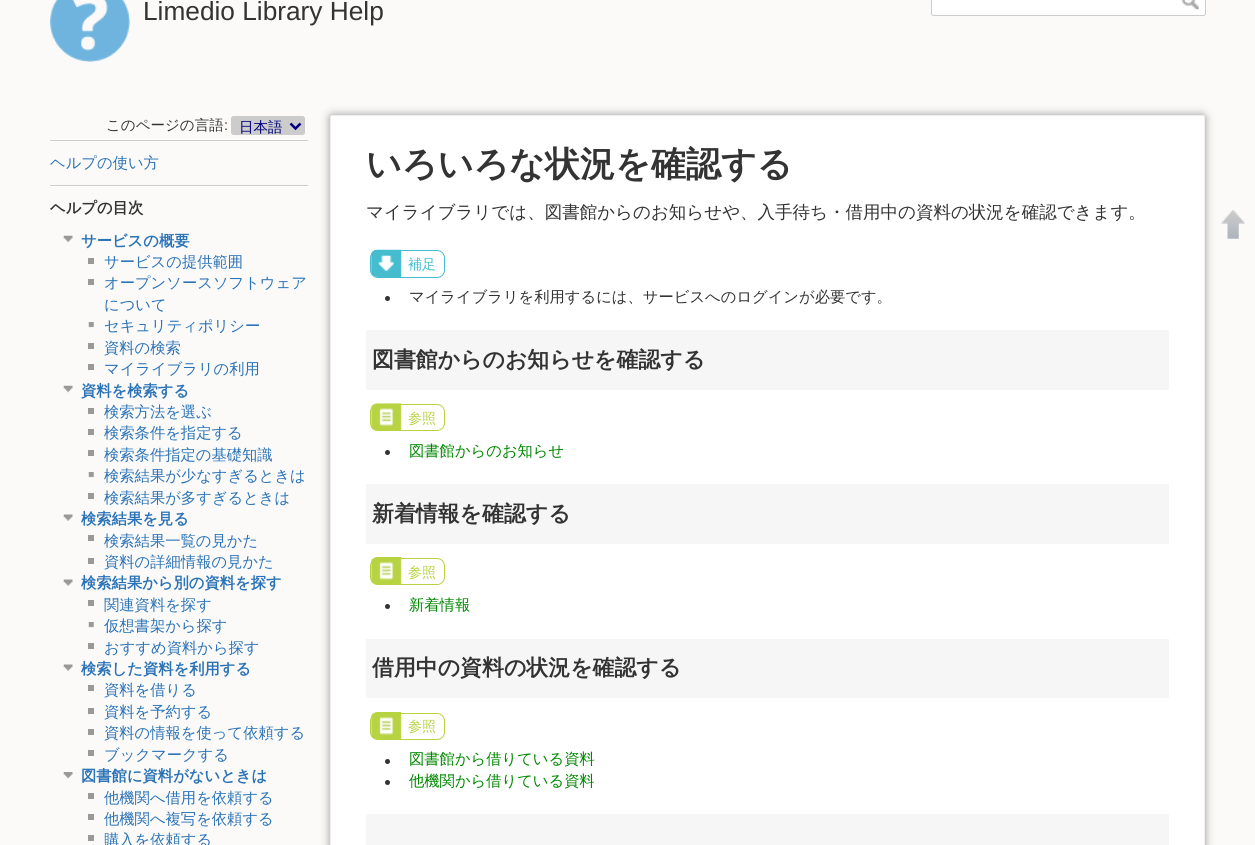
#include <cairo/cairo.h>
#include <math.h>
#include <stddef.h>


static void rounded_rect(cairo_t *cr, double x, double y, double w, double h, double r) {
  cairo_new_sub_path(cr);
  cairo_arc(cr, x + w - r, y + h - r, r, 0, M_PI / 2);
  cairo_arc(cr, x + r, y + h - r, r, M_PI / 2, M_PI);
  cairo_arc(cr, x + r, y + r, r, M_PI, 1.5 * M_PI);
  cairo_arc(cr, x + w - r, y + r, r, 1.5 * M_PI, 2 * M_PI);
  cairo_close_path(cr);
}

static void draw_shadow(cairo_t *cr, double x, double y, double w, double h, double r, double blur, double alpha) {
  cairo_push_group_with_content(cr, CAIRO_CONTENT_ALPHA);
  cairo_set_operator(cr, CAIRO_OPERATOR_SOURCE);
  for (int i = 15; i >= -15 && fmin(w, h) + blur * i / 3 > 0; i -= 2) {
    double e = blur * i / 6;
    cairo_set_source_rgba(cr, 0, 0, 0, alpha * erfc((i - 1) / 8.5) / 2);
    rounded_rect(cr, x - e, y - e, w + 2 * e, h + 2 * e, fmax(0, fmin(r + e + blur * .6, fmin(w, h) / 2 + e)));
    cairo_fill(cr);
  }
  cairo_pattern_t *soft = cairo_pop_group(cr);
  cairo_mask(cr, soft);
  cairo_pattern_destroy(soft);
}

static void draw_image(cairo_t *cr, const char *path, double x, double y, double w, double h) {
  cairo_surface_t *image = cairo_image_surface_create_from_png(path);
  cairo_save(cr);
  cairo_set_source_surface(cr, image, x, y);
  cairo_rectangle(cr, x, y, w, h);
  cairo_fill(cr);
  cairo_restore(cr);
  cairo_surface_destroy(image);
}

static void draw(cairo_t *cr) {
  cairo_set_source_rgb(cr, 251 / 255.0, 250 / 255.0, 249 / 255.0);
  cairo_paint(cr);
  draw_image(cr, "images/1.png", 50, 0, 80, 62);
  cairo_set_source_rgb(cr, 1, 1, 1);
  rounded_rect(cr, 931.5, -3.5, 274, 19, 2);
  cairo_fill_preserve(cr);
  cairo_set_source_rgb(cr, 204 / 255.0, 204 / 255.0, 204 / 255.0);
  cairo_set_line_width(cr, 1);
  cairo_stroke(cr);
  draw_image(cr, "images/2.png", 1181, 0, 18, 10);
  rounded_rect(cr, 231, 116, 74, 19, 2.5);
  cairo_fill(cr);
  cairo_new_path(cr);
  cairo_move_to(cr, 290.5, 123.5);
  cairo_line_to(cr, 295.5, 128.5);
  cairo_line_to(cr, 300.5, 123.5);
  cairo_set_source_rgb(cr, 0, 0, 128 / 255.0);
  cairo_set_line_width(cr, 2.5);
  cairo_stroke(cr);
  cairo_set_source_rgb(cr, 204 / 255.0, 204 / 255.0, 204 / 255.0);
  cairo_rectangle(cr, 50, 140, 258, 1);
  cairo_fill(cr);
  cairo_set_source_rgb(cr, 1, 1, 1);
  cairo_rectangle(cr, 50, 141, 258, 1);
  cairo_fill(cr);
  cairo_set_source_rgb(cr, 204 / 255.0, 204 / 255.0, 204 / 255.0);
  cairo_rectangle(cr, 50, 185, 258, 1);
  cairo_fill(cr);
  cairo_set_source_rgb(cr, 1, 1, 1);
  cairo_rectangle(cr, 50, 186, 258, 1);
  cairo_fill(cr);
  draw_image(cr, "images/3.png", 63, 235, 10, 8);
  cairo_set_source_rgb(cr, 153 / 255.0, 153 / 255.0, 153 / 255.0);
  cairo_rectangle(cr, 88, 258, 6, 6);
  cairo_fill(cr);
  cairo_rectangle(cr, 88, 279, 6, 6);
  cairo_fill(cr);
  draw_image(cr, "images/4.png", 88, 322, 6, 6);
  cairo_rectangle(cr, 88, 343, 6, 6);
  cairo_fill(cr);
  cairo_rectangle(cr, 88, 364, 6, 6);
  cairo_fill(cr);
  draw_image(cr, "images/3.png", 63, 385, 10, 8);
  cairo_rectangle(cr, 88, 408, 6, 6);
  cairo_fill(cr);
  cairo_rectangle(cr, 88, 429, 6, 6);
  cairo_fill(cr);
  cairo_rectangle(cr, 88, 450, 6, 6);
  cairo_fill(cr);
  draw_image(cr, "images/4.png", 88, 472, 6, 6);
  cairo_rectangle(cr, 88, 493, 6, 6);
  cairo_fill(cr);
  draw_image(cr, "images/5.png", 63, 514, 10, 7);
  cairo_rectangle(cr, 88, 535, 6, 6);
  cairo_fill(cr);
  cairo_rectangle(cr, 88, 558, 6, 6);
  cairo_fill(cr);
  draw_image(cr, "images/5.png", 63, 579, 10, 7);
  cairo_rectangle(cr, 88, 600, 6, 6);
  cairo_fill(cr);
  draw_image(cr, "images/4.png", 88, 622, 6, 6);
  cairo_rectangle(cr, 88, 643, 6, 6);
  cairo_fill(cr);
  draw_image(cr, "images/5.png", 63, 664, 10, 7);
  cairo_rectangle(cr, 88, 685, 6, 6);
  cairo_fill(cr);
  cairo_rectangle(cr, 88, 708, 6, 6);
  cairo_fill(cr);
  cairo_rectangle(cr, 88, 729, 6, 6);
  cairo_fill(cr);
  cairo_rectangle(cr, 88, 750, 6, 6);
  cairo_fill(cr);
  draw_image(cr, "images/6.png", 63, 772, 10, 7);
  cairo_rectangle(cr, 88, 793, 6, 6);
  cairo_fill(cr);
  cairo_rectangle(cr, 88, 814, 6, 6);
  cairo_fill(cr);
  cairo_rectangle(cr, 88, 835, 6, 6);
  cairo_fill(cr);
  cairo_set_source_rgb(cr, 153 / 255.0, 153 / 255.0, 153 / 255.0);
  draw_shadow(cr, 330, 115, 875, 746, 2.5, 4.5, 1);
  cairo_set_source_rgb(cr, 1, 1, 1);
  rounded_rect(cr, 330.5, 115.5, 874, 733, 2);
  cairo_fill_preserve(cr);
  cairo_set_source_rgb(cr, 238 / 255.0, 238 / 255.0, 238 / 255.0);
  cairo_set_line_width(cr, 1);
  cairo_stroke(cr);
  draw_image(cr, "images/7.png", 371, 249, 31, 28);
  rounded_rect(cr, 370.5, 250.5, 74, 27, 7.5);
  cairo_set_source_rgb(cr, 69 / 255.0, 189 / 255.0, 207 / 255.0);
  cairo_stroke(cr);
  cairo_set_source_rgb(cr, 51 / 255.0, 51 / 255.0, 51 / 255.0);
  cairo_arc(cr, 387.5, 298.5, 2.5, 0, 2 * M_PI);
  cairo_fill(cr);
  cairo_set_source_rgb(cr, 246 / 255.0, 246 / 255.0, 246 / 255.0);
  cairo_rectangle(cr, 366, 330, 803, 60);
  cairo_fill(cr);
  draw_image(cr, "images/8.png", 371, 403, 31, 28);
  rounded_rect(cr, 370.5, 404.5, 74, 26, 7.5);
  cairo_set_source_rgb(cr, 183 / 255.0, 211 / 255.0, 66 / 255.0);
  cairo_stroke(cr);
  cairo_set_source_rgb(cr, 51 / 255.0, 51 / 255.0, 51 / 255.0);
  cairo_arc(cr, 387.5, 452.5, 2.5, 0, 2 * M_PI);
  cairo_fill(cr);
  cairo_set_source_rgb(cr, 246 / 255.0, 246 / 255.0, 246 / 255.0);
  cairo_rectangle(cr, 366, 484, 803, 60);
  cairo_fill(cr);
  draw_image(cr, "images/9.png", 371, 557, 31, 28);
  rounded_rect(cr, 370.5, 558.5, 74, 26, 7.5);
  cairo_set_source_rgb(cr, 183 / 255.0, 211 / 255.0, 66 / 255.0);
  cairo_stroke(cr);
  cairo_set_source_rgb(cr, 51 / 255.0, 51 / 255.0, 51 / 255.0);
  cairo_arc(cr, 387.5, 606.5, 2.5, 0, 2 * M_PI);
  cairo_fill(cr);
  cairo_set_source_rgb(cr, 246 / 255.0, 246 / 255.0, 246 / 255.0);
  cairo_rectangle(cr, 366, 639, 803, 59);
  cairo_fill(cr);
  draw_image(cr, "images/9.png", 371, 712, 31, 28);
  rounded_rect(cr, 370.5, 713.5, 74, 26, 7.5);
  cairo_set_source_rgb(cr, 183 / 255.0, 211 / 255.0, 66 / 255.0);
  cairo_stroke(cr);
  cairo_set_source_rgb(cr, 51 / 255.0, 51 / 255.0, 51 / 255.0);
  cairo_arc(cr, 387.5, 761.5, 2.5, 0, 2 * M_PI);
  cairo_fill(cr);
  cairo_arc(cr, 387.5, 782.5, 2.5, 0, 2 * M_PI);
  cairo_fill(cr);
  cairo_set_source_rgb(cr, 246 / 255.0, 246 / 255.0, 246 / 255.0);
  cairo_rectangle(cr, 366, 814, 803, 31);
  cairo_fill(cr);
  draw_image(cr, "images/10.png", 1221, 210, 24, 29);
  cairo_select_font_face(cr, "Liberation Sans", CAIRO_FONT_SLANT_NORMAL, CAIRO_FONT_WEIGHT_NORMAL);
  cairo_set_font_size(cr, 26.25);
  cairo_set_source_rgb(cr, 51 / 255.0, 51 / 255.0, 51 / 255.0);
  cairo_move_to(cr, 143, 20);
  cairo_show_text(cr, "Limedio Library Help");
  cairo_select_font_face(cr, "WenQuanYi Zen Hei Medium", CAIRO_FONT_SLANT_NORMAL, CAIRO_FONT_WEIGHT_NORMAL);
  cairo_set_font_size(cr, 14.5);
  cairo_move_to(cr, 106, 130);
  cairo_show_text(cr, "このページの言語");
  cairo_select_font_face(cr, "Liberation Sans", CAIRO_FONT_SLANT_NORMAL, CAIRO_FONT_WEIGHT_NORMAL);
  cairo_move_to(cr, 224, 130);
  cairo_show_text(cr, ":");
  cairo_select_font_face(cr, "WenQuanYi Zen Hei Medium", CAIRO_FONT_SLANT_NORMAL, CAIRO_FONT_WEIGHT_NORMAL);
  cairo_set_source_rgb(cr, 0, 0, 128 / 255.0);
  cairo_move_to(cr, 239, 132);
  cairo_show_text(cr, "日本語");
  cairo_set_font_size(cr, 15.3);
  cairo_set_source_rgb(cr, 43 / 255.0, 115 / 255.0, 183 / 255.0);
  cairo_move_to(cr, 50, 168);
  cairo_show_text(cr, "ヘルプの使い方");
  cairo_select_font_face(cr, "WenQuanYi Zen Hei", CAIRO_FONT_SLANT_NORMAL, CAIRO_FONT_WEIGHT_BOLD);
  cairo_set_source_rgb(cr, 51 / 255.0, 51 / 255.0, 51 / 255.0);
  cairo_move_to(cr, 50, 213);
  cairo_show_text(cr, "ヘルプの目次");
  cairo_set_source_rgb(cr, 43 / 255.0, 115 / 255.0, 183 / 255.0);
  cairo_move_to(cr, 81, 246);
  cairo_show_text(cr, "サービスの概要");
  cairo_select_font_face(cr, "WenQuanYi Zen Hei Medium", CAIRO_FONT_SLANT_NORMAL, CAIRO_FONT_WEIGHT_NORMAL);
  cairo_move_to(cr, 104, 267);
  cairo_show_text(cr, "サービスの提供範囲");
  cairo_move_to(cr, 104, 288);
  cairo_show_text(cr, "オープンソースソフトウェア");
  cairo_move_to(cr, 104, 310);
  cairo_show_text(cr, "について");
  cairo_move_to(cr, 104, 331);
  cairo_show_text(cr, "セキュリティポリシー");
  cairo_move_to(cr, 104, 353);
  cairo_show_text(cr, "資料の検索");
  cairo_move_to(cr, 104, 374);
  cairo_show_text(cr, "マイライブラリの利用");
  cairo_select_font_face(cr, "WenQuanYi Zen Hei", CAIRO_FONT_SLANT_NORMAL, CAIRO_FONT_WEIGHT_BOLD);
  cairo_move_to(cr, 81, 396);
  cairo_show_text(cr, "資料を検索する");
  cairo_select_font_face(cr, "WenQuanYi Zen Hei Medium", CAIRO_FONT_SLANT_NORMAL, CAIRO_FONT_WEIGHT_NORMAL);
  cairo_move_to(cr, 104, 417);
  cairo_show_text(cr, "検索方法を選ぶ");
  cairo_move_to(cr, 104, 438);
  cairo_show_text(cr, "検索条件を指定する");
  cairo_move_to(cr, 104, 460);
  cairo_show_text(cr, "検索条件指定の基礎知識");
  cairo_move_to(cr, 104, 481);
  cairo_show_text(cr, "検索結果が少なすぎるときは");
  cairo_move_to(cr, 104, 503);
  cairo_show_text(cr, "検索結果が多すぎるときは");
  cairo_select_font_face(cr, "WenQuanYi Zen Hei", CAIRO_FONT_SLANT_NORMAL, CAIRO_FONT_WEIGHT_BOLD);
  cairo_move_to(cr, 81, 524);
  cairo_show_text(cr, "検索結果を見る");
  cairo_select_font_face(cr, "WenQuanYi Zen Hei Medium", CAIRO_FONT_SLANT_NORMAL, CAIRO_FONT_WEIGHT_NORMAL);
  cairo_move_to(cr, 104, 546);
  cairo_show_text(cr, "検索結果一覧の見かた");
  cairo_move_to(cr, 104, 567);
  cairo_show_text(cr, "資料の詳細情報の見かた");
  cairo_select_font_face(cr, "WenQuanYi Zen Hei", CAIRO_FONT_SLANT_NORMAL, CAIRO_FONT_WEIGHT_BOLD);
  cairo_move_to(cr, 81, 588);
  cairo_show_text(cr, "検索結果から別の資料を探す");
  cairo_select_font_face(cr, "WenQuanYi Zen Hei Medium", CAIRO_FONT_SLANT_NORMAL, CAIRO_FONT_WEIGHT_NORMAL);
  cairo_move_to(cr, 104, 610);
  cairo_show_text(cr, "関連資料を探す");
  cairo_move_to(cr, 104, 631);
  cairo_show_text(cr, "仮想書架から探す");
  cairo_move_to(cr, 104, 653);
  cairo_show_text(cr, "おすすめ資料から探す");
  cairo_select_font_face(cr, "WenQuanYi Zen Hei", CAIRO_FONT_SLANT_NORMAL, CAIRO_FONT_WEIGHT_BOLD);
  cairo_move_to(cr, 81, 674);
  cairo_show_text(cr, "検索した資料を利用する");
  cairo_select_font_face(cr, "WenQuanYi Zen Hei Medium", CAIRO_FONT_SLANT_NORMAL, CAIRO_FONT_WEIGHT_NORMAL);
  cairo_move_to(cr, 104, 695);
  cairo_show_text(cr, "資料を借りる");
  cairo_move_to(cr, 104, 717);
  cairo_show_text(cr, "資料を予約する");
  cairo_move_to(cr, 104, 738);
  cairo_show_text(cr, "資料の情報を使って依頼する");
  cairo_move_to(cr, 104, 760);
  cairo_show_text(cr, "ブックマークする");
  cairo_select_font_face(cr, "WenQuanYi Zen Hei", CAIRO_FONT_SLANT_NORMAL, CAIRO_FONT_WEIGHT_BOLD);
  cairo_move_to(cr, 81, 781);
  cairo_show_text(cr, "図書館に資料がないときは");
  cairo_select_font_face(cr, "WenQuanYi Zen Hei Medium", CAIRO_FONT_SLANT_NORMAL, CAIRO_FONT_WEIGHT_NORMAL);
  cairo_move_to(cr, 104, 803);
  cairo_show_text(cr, "他機関へ借用を依頼する");
  cairo_move_to(cr, 104, 824);
  cairo_show_text(cr, "他機関へ複写を依頼する");
  cairo_move_to(cr, 104, 845);
  cairo_show_text(cr, "購入を依頼する");
  cairo_select_font_face(cr, "WenQuanYi Zen Hei", CAIRO_FONT_SLANT_NORMAL, CAIRO_FONT_WEIGHT_BOLD);
  cairo_set_font_size(cr, 35);
  cairo_set_source_rgb(cr, 51 / 255.0, 51 / 255.0, 51 / 255.0);
  cairo_move_to(cr, 366, 176);
  cairo_show_text(cr, "いろいろな状況を確認する");
  cairo_select_font_face(cr, "WenQuanYi Zen Hei Medium", CAIRO_FONT_SLANT_NORMAL, CAIRO_FONT_WEIGHT_NORMAL);
  cairo_set_font_size(cr, 17.5);
  cairo_move_to(cr, 366, 218);
  cairo_show_text(cr, "マイライブラリでは、図書館からのお知らせや、入手待ち・借用中の資料の状況を確認できます。");
  cairo_set_font_size(cr, 14);
  cairo_set_source_rgb(cr, 69 / 255.0, 189 / 255.0, 207 / 255.0);
  cairo_move_to(cr, 408, 269);
  cairo_show_text(cr, "補足");
  cairo_set_font_size(cr, 15.3);
  cairo_set_source_rgb(cr, 51 / 255.0, 51 / 255.0, 51 / 255.0);
  cairo_move_to(cr, 409, 302);
  cairo_show_text(cr, "マイライブラリを利用するには、サービスへのログインが必要です。");
  cairo_select_font_face(cr, "WenQuanYi Zen Hei", CAIRO_FONT_SLANT_NORMAL, CAIRO_FONT_WEIGHT_BOLD);
  cairo_set_font_size(cr, 21.9);
  cairo_move_to(cr, 372, 367);
  cairo_show_text(cr, "図書館からのお知らせを確認する");
  cairo_select_font_face(cr, "WenQuanYi Zen Hei Medium", CAIRO_FONT_SLANT_NORMAL, CAIRO_FONT_WEIGHT_NORMAL);
  cairo_set_font_size(cr, 14);
  cairo_set_source_rgb(cr, 183 / 255.0, 211 / 255.0, 66 / 255.0);
  cairo_move_to(cr, 408, 423);
  cairo_show_text(cr, "参照");
  cairo_set_font_size(cr, 15.3);
  cairo_set_source_rgb(cr, 0, 136 / 255.0, 0);
  cairo_move_to(cr, 409, 456);
  cairo_show_text(cr, "図書館からのお知らせ");
  cairo_select_font_face(cr, "WenQuanYi Zen Hei", CAIRO_FONT_SLANT_NORMAL, CAIRO_FONT_WEIGHT_BOLD);
  cairo_set_font_size(cr, 21.9);
  cairo_set_source_rgb(cr, 51 / 255.0, 51 / 255.0, 51 / 255.0);
  cairo_move_to(cr, 372, 521);
  cairo_show_text(cr, "新着情報を確認する");
  cairo_select_font_face(cr, "WenQuanYi Zen Hei Medium", CAIRO_FONT_SLANT_NORMAL, CAIRO_FONT_WEIGHT_NORMAL);
  cairo_set_font_size(cr, 14);
  cairo_set_source_rgb(cr, 183 / 255.0, 211 / 255.0, 66 / 255.0);
  cairo_move_to(cr, 408, 577);
  cairo_show_text(cr, "参照");
  cairo_set_font_size(cr, 15.3);
  cairo_set_source_rgb(cr, 0, 136 / 255.0, 0);
  cairo_move_to(cr, 409, 610);
  cairo_show_text(cr, "新着情報");
  cairo_select_font_face(cr, "WenQuanYi Zen Hei", CAIRO_FONT_SLANT_NORMAL, CAIRO_FONT_WEIGHT_BOLD);
  cairo_set_font_size(cr, 21.9);
  cairo_set_source_rgb(cr, 51 / 255.0, 51 / 255.0, 51 / 255.0);
  cairo_move_to(cr, 372, 675);
  cairo_show_text(cr, "借用中の資料の状況を確認する");
  cairo_select_font_face(cr, "WenQuanYi Zen Hei Medium", CAIRO_FONT_SLANT_NORMAL, CAIRO_FONT_WEIGHT_NORMAL);
  cairo_set_font_size(cr, 14);
  cairo_set_source_rgb(cr, 183 / 255.0, 211 / 255.0, 66 / 255.0);
  cairo_move_to(cr, 408, 731);
  cairo_show_text(cr, "参照");
  cairo_set_font_size(cr, 15.3);
  cairo_set_source_rgb(cr, 0, 136 / 255.0, 0);
  cairo_move_to(cr, 409, 764);
  cairo_show_text(cr, "図書館から借りている資料");
  cairo_move_to(cr, 409, 786);
  cairo_show_text(cr, "他機関から借りている資料");
}

int main(void) {
  cairo_surface_t *surface = cairo_image_surface_create(CAIRO_FORMAT_RGB24, 1255, 845);
  cairo_t *cr = cairo_create(surface);
  cairo_font_options_t *options = cairo_font_options_create();
  cairo_font_options_set_hint_metrics(options, CAIRO_HINT_METRICS_OFF);
  cairo_font_options_set_hint_style(options, CAIRO_HINT_STYLE_NONE);
  cairo_set_font_options(cr, options);
  cairo_set_miter_limit(cr, 4);
  draw(cr);
  cairo_surface_write_to_png(surface, "out.png");
  cairo_font_options_destroy(options);
  cairo_destroy(cr);
  cairo_surface_destroy(surface);
  return 0;
}
